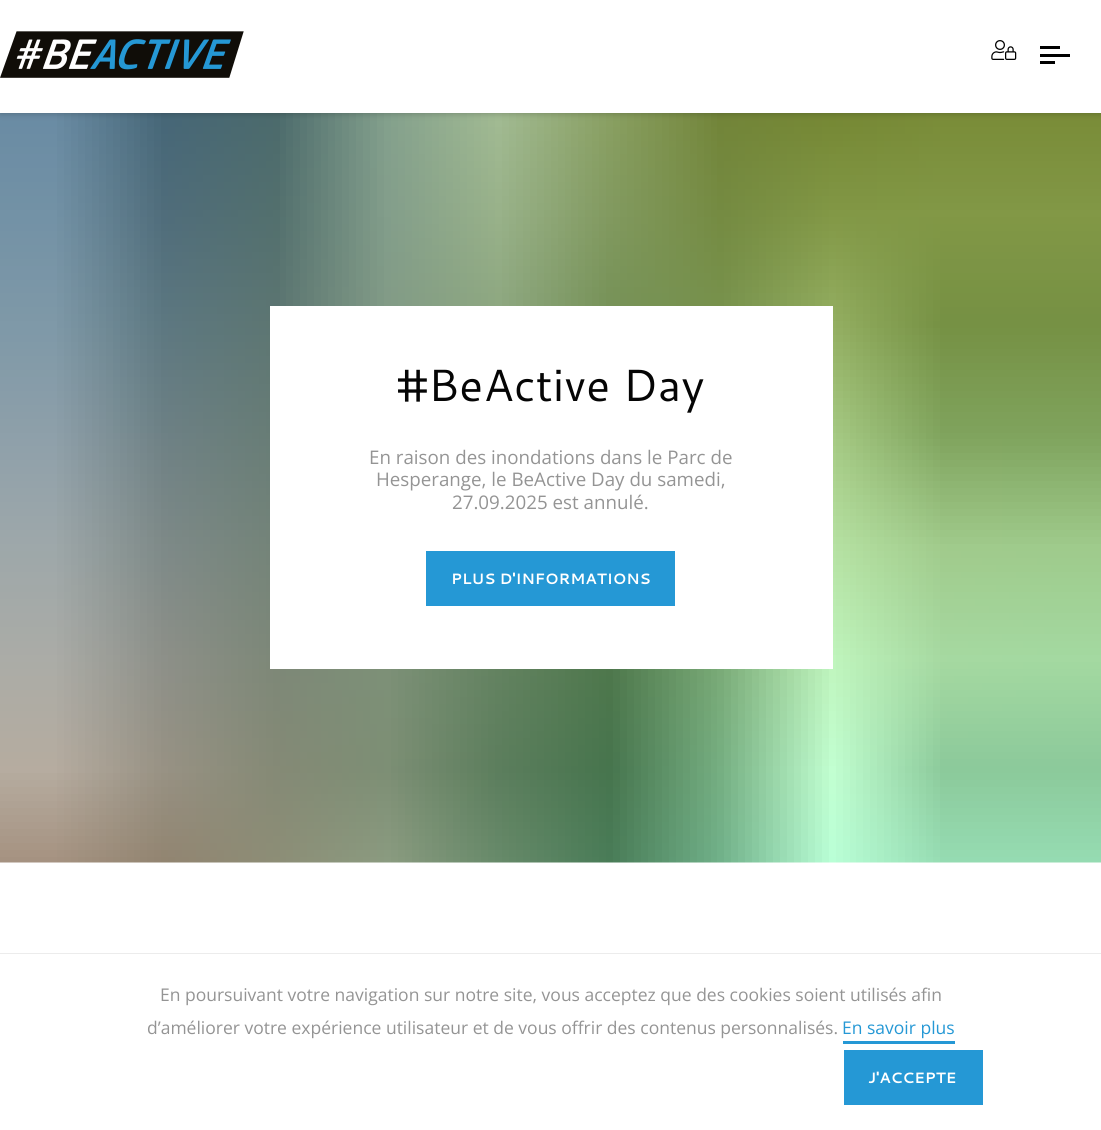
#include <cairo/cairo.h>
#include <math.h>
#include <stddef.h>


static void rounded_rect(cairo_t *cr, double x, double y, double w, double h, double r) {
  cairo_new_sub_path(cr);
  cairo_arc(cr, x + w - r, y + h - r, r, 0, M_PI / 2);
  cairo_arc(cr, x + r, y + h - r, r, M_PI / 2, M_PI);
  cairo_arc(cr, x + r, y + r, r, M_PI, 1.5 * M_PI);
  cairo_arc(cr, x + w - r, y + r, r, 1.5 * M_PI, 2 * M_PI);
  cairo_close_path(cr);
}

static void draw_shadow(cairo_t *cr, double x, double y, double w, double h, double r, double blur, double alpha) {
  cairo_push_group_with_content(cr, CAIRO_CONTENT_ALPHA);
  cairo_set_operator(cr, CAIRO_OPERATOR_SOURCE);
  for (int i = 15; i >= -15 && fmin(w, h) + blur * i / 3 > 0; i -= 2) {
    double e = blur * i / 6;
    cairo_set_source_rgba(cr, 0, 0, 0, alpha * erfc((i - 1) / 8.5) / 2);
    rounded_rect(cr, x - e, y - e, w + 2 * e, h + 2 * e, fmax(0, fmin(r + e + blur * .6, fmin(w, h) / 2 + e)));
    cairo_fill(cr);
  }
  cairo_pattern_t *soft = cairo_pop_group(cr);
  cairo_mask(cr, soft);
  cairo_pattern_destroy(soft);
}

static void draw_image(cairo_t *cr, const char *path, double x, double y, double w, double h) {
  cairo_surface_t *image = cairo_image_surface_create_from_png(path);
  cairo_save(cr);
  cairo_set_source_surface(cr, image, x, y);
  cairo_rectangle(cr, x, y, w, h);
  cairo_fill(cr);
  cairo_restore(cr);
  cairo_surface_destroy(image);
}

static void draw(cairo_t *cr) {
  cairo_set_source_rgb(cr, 1, 1, 1);
  cairo_paint(cr);
  draw_image(cr, "images/3.png", 0, 113, 1101, 750);
  cairo_set_source_rgb(cr, 0, 0, 0);
  draw_shadow(cr, 0, 1, 1101, 113, 0, 3, 0.2);
  cairo_set_source_rgb(cr, 1, 1, 1);
  cairo_rectangle(cr, 0, 0, 1101, 113);
  cairo_fill(cr);
  draw_image(cr, "images/1.png", 0, 31, 244, 47);
  draw_image(cr, "images/2.png", 991, 40, 26, 20);
  cairo_set_source_rgb(cr, 0, 0, 0);
  cairo_rectangle(cr, 1040, 46, 20, 3);
  cairo_fill(cr);
  cairo_rectangle(cr, 1040, 54, 30, 3);
  cairo_fill(cr);
  cairo_rectangle(cr, 1040, 61, 15, 3);
  cairo_fill(cr);
  cairo_set_source_rgb(cr, 1, 1, 1);
  cairo_rectangle(cr, 270, 306, 563, 363);
  cairo_fill(cr);
  cairo_set_source_rgb(cr, 37 / 255.0, 152 / 255.0, 213 / 255.0);
  cairo_rectangle(cr, 426, 551, 249, 55);
  cairo_fill(cr);
  cairo_set_source_rgb(cr, 236 / 255.0, 236 / 255.0, 236 / 255.0);
  cairo_rectangle(cr, 0, 953, 1101, 1);
  cairo_fill(cr);
  cairo_set_source_rgb(cr, 37 / 255.0, 152 / 255.0, 213 / 255.0);
  cairo_rectangle(cr, 843, 1041, 112, 3);
  cairo_fill(cr);
  cairo_rectangle(cr, 844, 1050, 139, 55);
  cairo_fill(cr);
  cairo_select_font_face(cr, "Cantarell", CAIRO_FONT_SLANT_NORMAL, CAIRO_FONT_WEIGHT_NORMAL);
  cairo_set_font_size(cr, 45);
  cairo_set_source_rgb(cr, 5 / 255.0, 5 / 255.0, 5 / 255.0);
  cairo_move_to(cr, 397, 401);
  cairo_show_text(cr, "#BeActive Day");
  cairo_select_font_face(cr, "Open Sans", CAIRO_FONT_SLANT_NORMAL, CAIRO_FONT_WEIGHT_NORMAL);
  cairo_set_font_size(cr, 18.75);
  cairo_set_source_rgb(cr, 148 / 255.0, 148 / 255.0, 148 / 255.0);
  cairo_move_to(cr, 369, 464);
  cairo_show_text(cr, "En raison des inondations dans le Parc de");
  cairo_move_to(cr, 376, 486);
  cairo_show_text(cr, "Hesperange, le BeActive Day du samedi,");
  cairo_move_to(cr, 452, 509);
  cairo_show_text(cr, "27.09.2025 est annulé.");
  cairo_select_font_face(cr, "Cantarell", CAIRO_FONT_SLANT_NORMAL, CAIRO_FONT_WEIGHT_BOLD);
  cairo_set_font_size(cr, 15);
  cairo_set_source_rgb(cr, 1, 1, 1);
  cairo_move_to(cr, 451, 584);
  cairo_show_text(cr, "PLUS D'INFORMATIONS");
  cairo_select_font_face(cr, "Open Sans", CAIRO_FONT_SLANT_NORMAL, CAIRO_FONT_WEIGHT_NORMAL);
  cairo_set_font_size(cr, 17.5);
  cairo_set_source_rgb(cr, 148 / 255.0, 148 / 255.0, 148 / 255.0);
  cairo_move_to(cr, 160, 1001);
  cairo_show_text(cr, "En poursuivant votre navigation sur notre site, vous acceptez que des cookies soient utilisés afin");
  cairo_move_to(cr, 147, 1034);
  cairo_show_text(cr, "d’améliorer votre expérience utilisateur et de vous offrir des contenus personnalisés.");
  cairo_set_source_rgb(cr, 37 / 255.0, 152 / 255.0, 213 / 255.0);
  cairo_move_to(cr, 842, 1034);
  cairo_show_text(cr, "En savoir plus");
  cairo_select_font_face(cr, "Cantarell", CAIRO_FONT_SLANT_NORMAL, CAIRO_FONT_WEIGHT_BOLD);
  cairo_set_font_size(cr, 15);
  cairo_set_source_rgb(cr, 1, 1, 1);
  cairo_move_to(cr, 868, 1083);
  cairo_show_text(cr, "J'ACCEPTE");
}

int main(void) {
  cairo_surface_t *surface = cairo_image_surface_create(CAIRO_FORMAT_RGB24, 1101, 1130);
  cairo_t *cr = cairo_create(surface);
  cairo_font_options_t *options = cairo_font_options_create();
  cairo_font_options_set_hint_metrics(options, CAIRO_HINT_METRICS_OFF);
  cairo_font_options_set_hint_style(options, CAIRO_HINT_STYLE_NONE);
  cairo_set_font_options(cr, options);
  cairo_set_miter_limit(cr, 4);
  draw(cr);
  cairo_surface_write_to_png(surface, "out.png");
  cairo_font_options_destroy(options);
  cairo_destroy(cr);
  cairo_surface_destroy(surface);
  return 0;
}
